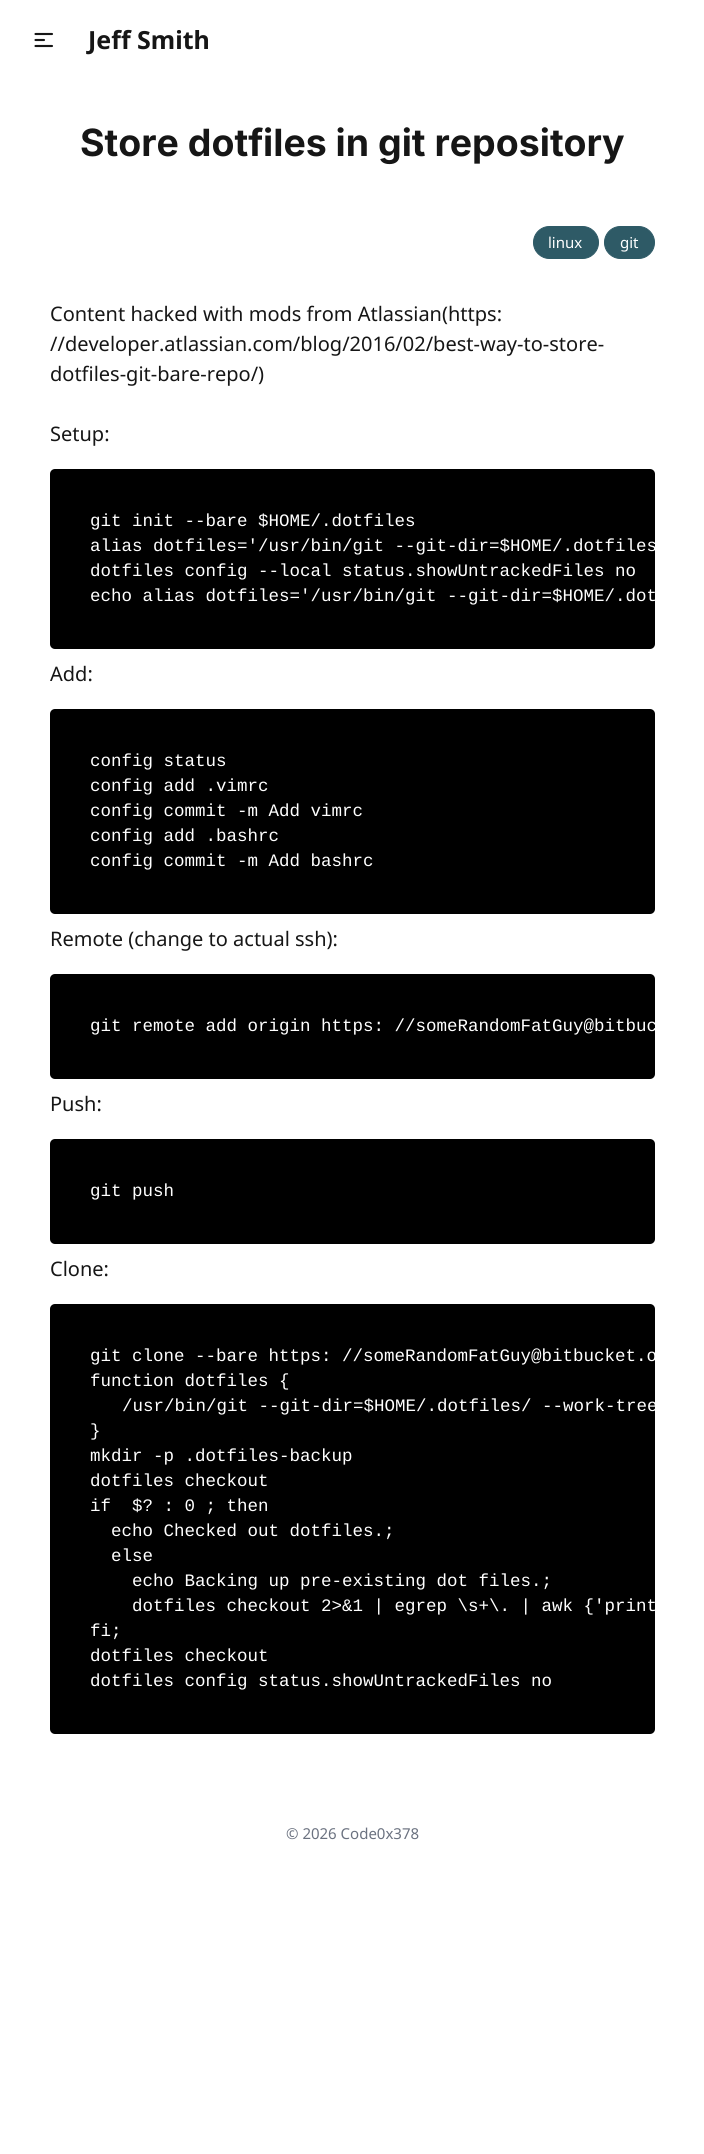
#include <cairo/cairo.h>
#include <math.h>
#include <stddef.h>


static void rounded_rect(cairo_t *cr, double x, double y, double w, double h, double r) {
  cairo_new_sub_path(cr);
  cairo_arc(cr, x + w - r, y + h - r, r, 0, M_PI / 2);
  cairo_arc(cr, x + r, y + h - r, r, M_PI / 2, M_PI);
  cairo_arc(cr, x + r, y + r, r, M_PI, 1.5 * M_PI);
  cairo_arc(cr, x + w - r, y + r, r, 1.5 * M_PI, 2 * M_PI);
  cairo_close_path(cr);
}

static void draw(cairo_t *cr) {
  cairo_set_source_rgb(cr, 1, 1, 1);
  cairo_paint(cr);
  cairo_new_path(cr);
  cairo_move_to(cr, 35.5, 34);
  cairo_line_to(cr, 52, 34);
  cairo_move_to(cr, 35.5, 40);
  cairo_line_to(cr, 44, 40);
  cairo_move_to(cr, 35.5, 46);
  cairo_line_to(cr, 52, 46);
  cairo_set_source_rgb(cr, 22 / 255.0, 22 / 255.0, 22 / 255.0);
  cairo_set_line_width(cr, 2.1);
  cairo_set_line_cap(cr, CAIRO_LINE_CAP_ROUND);
  cairo_set_line_join(cr, CAIRO_LINE_JOIN_ROUND);
  cairo_stroke(cr);
  cairo_set_source_rgb(cr, 46 / 255.0, 90 / 255.0, 102 / 255.0);
  rounded_rect(cr, 533.5, 226.5, 65, 32, 16);
  cairo_fill_preserve(cr);
  cairo_set_line_width(cr, 1);
  cairo_set_line_cap(cr, CAIRO_LINE_CAP_BUTT);
  cairo_set_line_join(cr, CAIRO_LINE_JOIN_MITER);
  cairo_stroke(cr);
  rounded_rect(cr, 604.5, 226.5, 50, 32, 16);
  cairo_fill_preserve(cr);
  cairo_stroke(cr);
  cairo_set_source_rgb(cr, 0, 0, 0);
  rounded_rect(cr, 50, 469, 605, 180, 5);
  cairo_fill(cr);
  rounded_rect(cr, 50, 709, 605, 205, 5);
  cairo_fill(cr);
  rounded_rect(cr, 50, 974, 605, 105, 5);
  cairo_fill(cr);
  rounded_rect(cr, 50, 1139, 605, 105, 5);
  cairo_fill(cr);
  rounded_rect(cr, 50, 1304, 605, 430, 5);
  cairo_fill(cr);
  cairo_select_font_face(cr, "Noto Sans", CAIRO_FONT_SLANT_NORMAL, CAIRO_FONT_WEIGHT_BOLD);
  cairo_set_font_size(cr, 25);
  cairo_set_source_rgb(cr, 22 / 255.0, 22 / 255.0, 22 / 255.0);
  cairo_move_to(cr, 88, 49);
  cairo_show_text(cr, "Jeff Smith");
  cairo_select_font_face(cr, "Inter", CAIRO_FONT_SLANT_NORMAL, CAIRO_FONT_WEIGHT_BOLD);
  cairo_set_font_size(cr, 37.5);
  cairo_move_to(cr, 80, 156);
  cairo_show_text(cr, "Store dotfiles in git repository");
  cairo_select_font_face(cr, "Noto Sans", CAIRO_FONT_SLANT_NORMAL, CAIRO_FONT_WEIGHT_NORMAL);
  cairo_set_font_size(cr, 15);
  cairo_set_source_rgb(cr, 1, 1, 1);
  cairo_move_to(cr, 548, 248);
  cairo_show_text(cr, "linux");
  cairo_move_to(cr, 620, 248);
  cairo_show_text(cr, "git");
  cairo_set_font_size(cr, 20);
  cairo_set_source_rgb(cr, 22 / 255.0, 22 / 255.0, 22 / 255.0);
  cairo_move_to(cr, 50, 321);
  cairo_show_text(cr, "Content hacked with mods from Atlassian(https:");
  cairo_move_to(cr, 50, 351);
  cairo_show_text(cr, "//developer.atlassian.com/blog/2016/02/best-way-to-store-");
  cairo_move_to(cr, 50, 381);
  cairo_show_text(cr, "dotfiles-git-bare-repo/)");
  cairo_move_to(cr, 50, 441);
  cairo_show_text(cr, "Setup:");
  cairo_select_font_face(cr, "Liberation Mono", CAIRO_FONT_SLANT_NORMAL, CAIRO_FONT_WEIGHT_NORMAL);
  cairo_set_font_size(cr, 17.5);
  cairo_set_source_rgb(cr, 1, 1, 1);
  cairo_move_to(cr, 90, 526);
  cairo_show_text(cr, "git init --bare $HOME/.dotfiles");
  cairo_save(cr);
  rounded_rect(cr, 50, 469, 605, 180, 5);
  cairo_clip(cr);
  cairo_move_to(cr, 90, 551);
  cairo_show_text(cr, "alias dotfiles='/usr/bin/git --git-dir=$HOME/.dotfiles");
  cairo_restore(cr);
  cairo_move_to(cr, 90, 576);
  cairo_show_text(cr, "dotfiles config --local status.showUntrackedFiles no");
  cairo_move_to(cr, 90, 601);
  cairo_show_text(cr, "echo alias dotfiles='/usr/bin/git --git-dir=$HOME/.dot");
  cairo_select_font_face(cr, "Noto Sans", CAIRO_FONT_SLANT_NORMAL, CAIRO_FONT_WEIGHT_NORMAL);
  cairo_set_font_size(cr, 20);
  cairo_set_source_rgb(cr, 22 / 255.0, 22 / 255.0, 22 / 255.0);
  cairo_move_to(cr, 50, 681);
  cairo_show_text(cr, "Add:");
  cairo_select_font_face(cr, "Liberation Mono", CAIRO_FONT_SLANT_NORMAL, CAIRO_FONT_WEIGHT_NORMAL);
  cairo_set_font_size(cr, 17.5);
  cairo_set_source_rgb(cr, 1, 1, 1);
  cairo_move_to(cr, 90, 766);
  cairo_show_text(cr, "config status");
  cairo_move_to(cr, 90, 791);
  cairo_show_text(cr, "config add .vimrc");
  cairo_move_to(cr, 90, 816);
  cairo_show_text(cr, "config commit -m Add vimrc");
  cairo_move_to(cr, 90, 841);
  cairo_show_text(cr, "config add .bashrc");
  cairo_move_to(cr, 90, 866);
  cairo_show_text(cr, "config commit -m Add bashrc");
  cairo_select_font_face(cr, "Noto Sans", CAIRO_FONT_SLANT_NORMAL, CAIRO_FONT_WEIGHT_NORMAL);
  cairo_set_font_size(cr, 20);
  cairo_set_source_rgb(cr, 22 / 255.0, 22 / 255.0, 22 / 255.0);
  cairo_move_to(cr, 50, 946);
  cairo_show_text(cr, "Remote (change to actual ssh):");
  cairo_save(cr);
  rounded_rect(cr, 50, 974, 605, 105, 5);
  cairo_clip(cr);
  cairo_select_font_face(cr, "Liberation Mono", CAIRO_FONT_SLANT_NORMAL, CAIRO_FONT_WEIGHT_NORMAL);
  cairo_set_font_size(cr, 17.5);
  cairo_set_source_rgb(cr, 1, 1, 1);
  cairo_move_to(cr, 90, 1031);
  cairo_show_text(cr, "git remote add origin https: //someRandomFatGuy@bitbuc");
  cairo_restore(cr);
  cairo_move_to(cr, 50, 1111);
  cairo_show_text(cr, "Push:");
  cairo_select_font_face(cr, "Liberation Mono", CAIRO_FONT_SLANT_NORMAL, CAIRO_FONT_WEIGHT_NORMAL);
  cairo_set_font_size(cr, 17.5);
  cairo_set_source_rgb(cr, 1, 1, 1);
  cairo_move_to(cr, 90, 1196);
  cairo_show_text(cr, "git push");
  cairo_select_font_face(cr, "Noto Sans", CAIRO_FONT_SLANT_NORMAL, CAIRO_FONT_WEIGHT_NORMAL);
  cairo_set_font_size(cr, 20);
  cairo_set_source_rgb(cr, 22 / 255.0, 22 / 255.0, 22 / 255.0);
  cairo_move_to(cr, 50, 1276);
  cairo_show_text(cr, "Clone:");
  cairo_save(cr);
  rounded_rect(cr, 50, 1304, 605, 430, 5);
  cairo_clip(cr);
  cairo_select_font_face(cr, "Liberation Mono", CAIRO_FONT_SLANT_NORMAL, CAIRO_FONT_WEIGHT_NORMAL);
  cairo_set_font_size(cr, 17.5);
  cairo_set_source_rgb(cr, 1, 1, 1);
  cairo_move_to(cr, 90, 1361);
  cairo_show_text(cr, "git clone --bare https: //someRandomFatGuy@bitbucket.o");
  cairo_restore(cr);
  cairo_select_font_face(cr, "Liberation Mono", CAIRO_FONT_SLANT_NORMAL, CAIRO_FONT_WEIGHT_NORMAL);
  cairo_set_font_size(cr, 17.5);
  cairo_set_source_rgb(cr, 1, 1, 1);
  cairo_move_to(cr, 90, 1386);
  cairo_show_text(cr, "function dotfiles {");
  cairo_save(cr);
  rounded_rect(cr, 50, 1304, 605, 430, 5);
  cairo_clip(cr);
  cairo_move_to(cr, 122, 1411);
  cairo_show_text(cr, "/usr/bin/git --git-dir=$HOME/.dotfiles/ --work-tree");
  cairo_restore(cr);
  cairo_move_to(cr, 90, 1436);
  cairo_show_text(cr, "}");
  cairo_move_to(cr, 90, 1461);
  cairo_show_text(cr, "mkdir -p .dotfiles-backup");
  cairo_move_to(cr, 90, 1486);
  cairo_show_text(cr, "dotfiles checkout");
  cairo_move_to(cr, 90, 1511);
  cairo_show_text(cr, "if  $? : 0 ; then");
  cairo_move_to(cr, 111, 1536);
  cairo_show_text(cr, "echo Checked out dotfiles.;");
  cairo_move_to(cr, 111, 1561);
  cairo_show_text(cr, "else");
  cairo_move_to(cr, 132, 1586);
  cairo_show_text(cr, "echo Backing up pre-existing dot files.;");
  cairo_move_to(cr, 132, 1611);
  cairo_show_text(cr, "dotfiles checkout 2>&1 | egrep \\s+\\. | awk {'print");
  cairo_move_to(cr, 90, 1636);
  cairo_show_text(cr, "fi;");
  cairo_move_to(cr, 90, 1661);
  cairo_show_text(cr, "dotfiles checkout");
  cairo_move_to(cr, 90, 1686);
  cairo_show_text(cr, "dotfiles config status.showUntrackedFiles no");
  cairo_select_font_face(cr, "Noto Sans", CAIRO_FONT_SLANT_NORMAL, CAIRO_FONT_WEIGHT_NORMAL);
  cairo_set_font_size(cr, 15);
  cairo_set_source_rgb(cr, 107 / 255.0, 114 / 255.0, 128 / 255.0);
  cairo_move_to(cr, 286, 1839);
  cairo_show_text(cr, "© 2026 Code0x378");
}

int main(void) {
  cairo_surface_t *surface = cairo_image_surface_create(CAIRO_FORMAT_RGB24, 704, 2154);
  cairo_t *cr = cairo_create(surface);
  cairo_font_options_t *options = cairo_font_options_create();
  cairo_font_options_set_hint_metrics(options, CAIRO_HINT_METRICS_OFF);
  cairo_font_options_set_hint_style(options, CAIRO_HINT_STYLE_NONE);
  cairo_set_font_options(cr, options);
  cairo_set_miter_limit(cr, 4);
  draw(cr);
  cairo_surface_write_to_png(surface, "out.png");
  cairo_font_options_destroy(options);
  cairo_destroy(cr);
  cairo_surface_destroy(surface);
  return 0;
}
